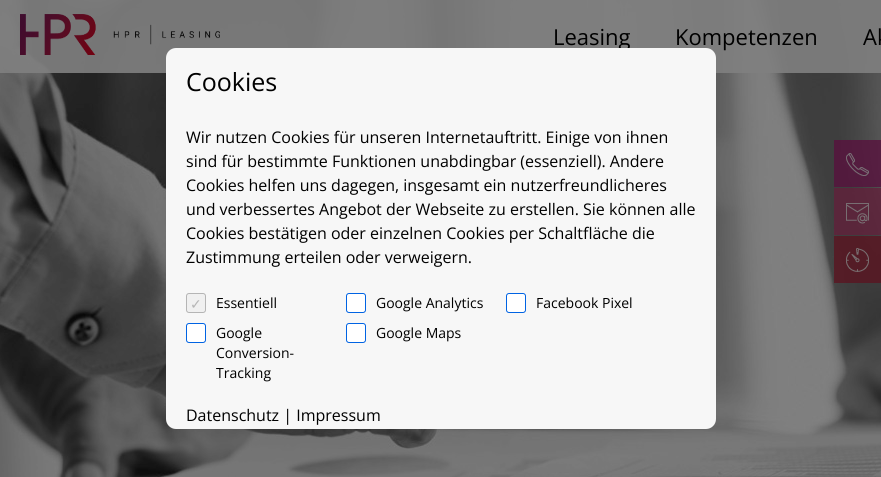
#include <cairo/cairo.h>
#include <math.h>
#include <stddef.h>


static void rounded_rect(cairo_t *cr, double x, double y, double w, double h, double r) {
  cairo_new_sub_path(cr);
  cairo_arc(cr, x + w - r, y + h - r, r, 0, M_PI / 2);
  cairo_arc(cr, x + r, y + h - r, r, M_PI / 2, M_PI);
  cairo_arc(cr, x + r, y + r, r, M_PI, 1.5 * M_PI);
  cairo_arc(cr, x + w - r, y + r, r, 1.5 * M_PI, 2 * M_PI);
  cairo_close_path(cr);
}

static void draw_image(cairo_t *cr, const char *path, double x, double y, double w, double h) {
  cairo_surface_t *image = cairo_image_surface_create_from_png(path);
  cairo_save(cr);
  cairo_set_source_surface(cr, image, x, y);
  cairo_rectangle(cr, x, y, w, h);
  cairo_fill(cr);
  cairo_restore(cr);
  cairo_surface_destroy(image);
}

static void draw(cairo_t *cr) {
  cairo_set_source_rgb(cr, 1, 1, 1);
  cairo_paint(cr);
  draw_image(cr, "images/1.png", 0, 0, 881, 477);
  cairo_set_source_rgba(cr, 128 / 255.0, 128 / 255.0, 128 / 255.0, 0.9);
  cairo_rectangle(cr, 0, 0, 881, 73);
  cairo_fill(cr);
  draw_image(cr, "images/2.png", 20, 14, 200, 41);
  cairo_set_source_rgba(cr, 88 / 255.0, 18 / 255.0, 62 / 255.0, 0.8);
  cairo_rectangle(cr, 834, 140, 47, 47);
  cairo_fill(cr);
  draw_image(cr, "images/3.png", 846, 153, 23, 23);
  cairo_set_source_rgba(cr, 98 / 255.0, 33 / 255.0, 59 / 255.0, 0.8);
  cairo_rectangle(cr, 834, 188, 47, 47);
  cairo_fill(cr);
  draw_image(cr, "images/4.png", 846, 203, 23, 21);
  cairo_set_source_rgba(cr, 90 / 255.0, 21 / 255.0, 33 / 255.0, 0.8);
  cairo_rectangle(cr, 834, 236, 47, 47);
  cairo_fill(cr);
  draw_image(cr, "images/5.png", 846, 248, 23, 24);
  cairo_select_font_face(cr, "Open Sans", CAIRO_FONT_SLANT_NORMAL, CAIRO_FONT_WEIGHT_NORMAL);
  cairo_set_font_size(cr, 22);
  cairo_set_source_rgb(cr, 0, 0, 0);
  cairo_move_to(cr, 553, 45);
  cairo_show_text(cr, "Leasing");
  cairo_move_to(cr, 675, 45);
  cairo_show_text(cr, "Kompetenzen");
  cairo_move_to(cr, 863, 45);
  cairo_show_text(cr, "Ak");
  cairo_set_source_rgb(cr, 247 / 255.0, 247 / 255.0, 247 / 255.0);
  rounded_rect(cr, 166, 48, 550, 381, 10);
  cairo_fill(cr);
  cairo_set_font_size(cr, 25);
  cairo_set_source_rgb(cr, 0, 0, 0);
  cairo_move_to(cr, 186, 91);
  cairo_show_text(cr, "Cookies");
  cairo_set_font_size(cr, 16);
  cairo_move_to(cr, 186, 143);
  cairo_show_text(cr, "Wir nutzen Cookies für unseren Internetauftritt. Einige von ihnen");
  cairo_move_to(cr, 186, 167);
  cairo_show_text(cr, "sind für bestimmte Funktionen unabdingbar (essenziell). Andere");
  cairo_move_to(cr, 186, 191);
  cairo_show_text(cr, "Cookies helfen uns dagegen, insgesamt ein nutzerfreundlicheres");
  cairo_move_to(cr, 186, 215);
  cairo_show_text(cr, "und verbessertes Angebot der Webseite zu erstellen. Sie können alle");
  cairo_move_to(cr, 186, 239);
  cairo_show_text(cr, "Cookies bestätigen oder einzelnen Cookies per Schaltfläche die");
  cairo_move_to(cr, 186, 263);
  cairo_show_text(cr, "Zustimmung erteilen oder verweigern.");
  cairo_set_source_rgb(cr, 240 / 255.0, 240 / 255.0, 240 / 255.0);
  rounded_rect(cr, 186.5, 293.5, 19, 19, 2.5);
  cairo_fill_preserve(cr);
  cairo_set_source_rgb(cr, 181 / 255.0, 181 / 255.0, 181 / 255.0);
  cairo_set_line_width(cr, 1);
  cairo_stroke(cr);
  cairo_select_font_face(cr, "DejaVu Sans", CAIRO_FONT_SLANT_NORMAL, CAIRO_FONT_WEIGHT_NORMAL);
  cairo_set_font_size(cr, 14);
  cairo_move_to(cr, 190, 309);
  cairo_show_text(cr, "✓");
  cairo_select_font_face(cr, "Open Sans", CAIRO_FONT_SLANT_NORMAL, CAIRO_FONT_WEIGHT_NORMAL);
  cairo_set_source_rgb(cr, 0, 0, 0);
  cairo_move_to(cr, 216, 308);
  cairo_show_text(cr, "Essentiell");
  cairo_set_source_rgb(cr, 1, 1, 1);
  rounded_rect(cr, 346.5, 293.5, 19, 19, 2.5);
  cairo_fill_preserve(cr);
  cairo_set_source_rgb(cr, 0, 99 / 255.0, 227 / 255.0);
  cairo_stroke(cr);
  cairo_set_source_rgb(cr, 0, 0, 0);
  cairo_move_to(cr, 376, 308);
  cairo_show_text(cr, "Google Analytics");
  cairo_set_source_rgb(cr, 1, 1, 1);
  rounded_rect(cr, 506.5, 293.5, 19, 19, 2.5);
  cairo_fill_preserve(cr);
  cairo_set_source_rgb(cr, 0, 99 / 255.0, 227 / 255.0);
  cairo_stroke(cr);
  cairo_set_source_rgb(cr, 0, 0, 0);
  cairo_move_to(cr, 536, 308);
  cairo_show_text(cr, "Facebook Pixel");
  cairo_set_source_rgb(cr, 1, 1, 1);
  rounded_rect(cr, 186.5, 323.5, 19, 19, 2.5);
  cairo_fill_preserve(cr);
  cairo_set_source_rgb(cr, 0, 99 / 255.0, 227 / 255.0);
  cairo_stroke(cr);
  cairo_set_source_rgb(cr, 0, 0, 0);
  cairo_move_to(cr, 216, 338);
  cairo_show_text(cr, "Google");
  cairo_move_to(cr, 216, 358);
  cairo_show_text(cr, "Conversion-");
  cairo_move_to(cr, 216, 378);
  cairo_show_text(cr, "Tracking");
  cairo_set_source_rgb(cr, 1, 1, 1);
  rounded_rect(cr, 346.5, 323.5, 19, 19, 2.5);
  cairo_fill_preserve(cr);
  cairo_set_source_rgb(cr, 0, 99 / 255.0, 227 / 255.0);
  cairo_stroke(cr);
  cairo_set_source_rgb(cr, 0, 0, 0);
  cairo_move_to(cr, 376, 338);
  cairo_show_text(cr, "Google Maps");
  cairo_set_font_size(cr, 16);
  cairo_move_to(cr, 186, 421);
  cairo_show_text(cr, "Datenschutz | Impressum");
}

int main(void) {
  cairo_surface_t *surface = cairo_image_surface_create(CAIRO_FORMAT_RGB24, 881, 477);
  cairo_t *cr = cairo_create(surface);
  cairo_font_options_t *options = cairo_font_options_create();
  cairo_font_options_set_hint_metrics(options, CAIRO_HINT_METRICS_OFF);
  cairo_font_options_set_hint_style(options, CAIRO_HINT_STYLE_NONE);
  cairo_set_font_options(cr, options);
  cairo_set_miter_limit(cr, 4);
  draw(cr);
  cairo_surface_write_to_png(surface, "out.png");
  cairo_font_options_destroy(options);
  cairo_destroy(cr);
  cairo_surface_destroy(surface);
  return 0;
}
